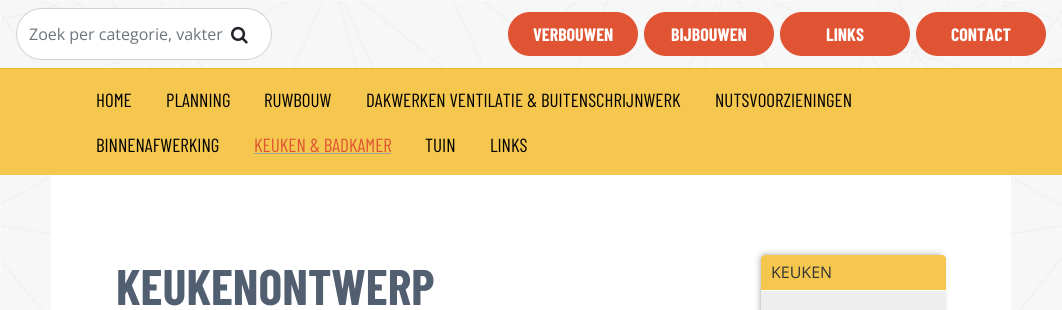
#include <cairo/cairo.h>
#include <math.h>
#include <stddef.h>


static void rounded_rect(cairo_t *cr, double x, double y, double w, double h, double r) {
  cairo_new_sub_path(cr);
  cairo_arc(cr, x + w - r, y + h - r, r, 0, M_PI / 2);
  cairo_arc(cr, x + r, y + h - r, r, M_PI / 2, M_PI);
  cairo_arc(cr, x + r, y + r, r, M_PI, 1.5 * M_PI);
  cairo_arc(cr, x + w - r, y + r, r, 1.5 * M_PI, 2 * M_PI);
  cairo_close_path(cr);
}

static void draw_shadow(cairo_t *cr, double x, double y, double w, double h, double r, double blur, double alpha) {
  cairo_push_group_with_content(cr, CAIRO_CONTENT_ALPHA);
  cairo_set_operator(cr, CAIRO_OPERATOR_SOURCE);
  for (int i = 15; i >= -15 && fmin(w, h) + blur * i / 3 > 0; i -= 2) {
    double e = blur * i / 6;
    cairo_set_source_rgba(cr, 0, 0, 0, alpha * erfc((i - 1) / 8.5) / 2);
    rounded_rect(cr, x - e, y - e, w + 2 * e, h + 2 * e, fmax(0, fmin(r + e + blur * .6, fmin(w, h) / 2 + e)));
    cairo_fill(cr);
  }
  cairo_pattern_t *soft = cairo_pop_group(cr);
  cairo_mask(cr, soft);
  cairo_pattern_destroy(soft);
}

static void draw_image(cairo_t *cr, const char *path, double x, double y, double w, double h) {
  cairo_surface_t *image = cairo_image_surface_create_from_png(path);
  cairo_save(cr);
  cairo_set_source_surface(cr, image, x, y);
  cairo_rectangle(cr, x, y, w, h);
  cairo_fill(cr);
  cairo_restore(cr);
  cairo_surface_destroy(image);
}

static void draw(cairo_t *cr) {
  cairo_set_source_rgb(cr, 1, 1, 1);
  cairo_paint(cr);
  draw_image(cr, "images/1.png", 0, 0, 1062, 310);
  cairo_set_source_rgb(cr, 1, 1, 1);
  rounded_rect(cr, 16.5, 8.5, 255, 51, 25.5);
  cairo_fill_preserve(cr);
  cairo_set_source_rgb(cr, 206 / 255.0, 212 / 255.0, 218 / 255.0);
  cairo_set_line_width(cr, 1);
  cairo_stroke(cr);
  draw_image(cr, "images/2.png", 231, 26, 17, 18);
  cairo_set_source_rgb(cr, 225 / 255.0, 84 / 255.0, 51 / 255.0);
  rounded_rect(cr, 508, 12, 130, 44, 22);
  cairo_fill(cr);
  rounded_rect(cr, 644, 12, 130, 44, 22);
  cairo_fill(cr);
  rounded_rect(cr, 780, 12, 130, 44, 22);
  cairo_fill(cr);
  rounded_rect(cr, 916, 12, 130, 44, 22);
  cairo_fill(cr);
  cairo_set_source_rgb(cr, 245 / 255.0, 199 / 255.0, 79 / 255.0);
  cairo_rectangle(cr, 0, 69, 1062, 106);
  cairo_fill(cr);
  cairo_set_source_rgb(cr, 236 / 255.0, 183 / 255.0, 45 / 255.0);
  cairo_rectangle(cr, 0, 68, 1062, 1);
  cairo_fill(cr);
  cairo_set_source_rgb(cr, 159 / 255.0, 160 / 255.0, 160 / 255.0);
  cairo_rectangle(cr, 254, 153, 137, 1);
  cairo_fill(cr);
  cairo_set_source_rgb(cr, 1, 1, 1);
  cairo_rectangle(cr, 51, 175, 960, 135);
  cairo_fill(cr);
  cairo_set_source_rgb(cr, 0, 0, 0);
  draw_shadow(cr, 764, 258, 175, 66, 0, 4.5, 0.75);
  cairo_set_source_rgb(cr, 245 / 255.0, 199 / 255.0, 79 / 255.0);
  cairo_new_path(cr);
  cairo_move_to(cr, 765, 255);
  cairo_line_to(cr, 942, 255);
  cairo_curve_to(cr, 944, 255, 946, 257, 946, 259);
  cairo_line_to(cr, 946, 291);
  cairo_line_to(cr, 761, 291);
  cairo_line_to(cr, 761, 259);
  cairo_curve_to(cr, 761, 257, 763, 255, 765, 255);
  cairo_close_path(cr);
  cairo_fill(cr);
  cairo_set_source_rgb(cr, 1, 1, 1);
  cairo_rectangle(cr, 761, 290, 185, 1);
  cairo_fill(cr);
  cairo_set_source_rgb(cr, 238 / 255.0, 238 / 255.0, 238 / 255.0);
  cairo_rectangle(cr, 761, 291, 185, 19);
  cairo_fill(cr);
  cairo_select_font_face(cr, "Open Sans", CAIRO_FONT_SLANT_NORMAL, CAIRO_FONT_WEIGHT_NORMAL);
  cairo_set_font_size(cr, 16);
  cairo_set_source_rgb(cr, 108 / 255.0, 117 / 255.0, 125 / 255.0);
  cairo_move_to(cr, 29, 40);
  cairo_show_text(cr, "Zoek per categorie, vakter");
  cairo_select_font_face(cr, "Barlow Condensed", CAIRO_FONT_SLANT_NORMAL, CAIRO_FONT_WEIGHT_BOLD);
  cairo_set_font_size(cr, 18);
  cairo_set_source_rgb(cr, 1, 1, 1);
  cairo_move_to(cr, 533, 41);
  cairo_show_text(cr, "VERBOUWEN");
  cairo_move_to(cr, 671, 41);
  cairo_show_text(cr, "BIJBOUWEN");
  cairo_move_to(cr, 826, 41);
  cairo_show_text(cr, "LINKS");
  cairo_move_to(cr, 951, 41);
  cairo_show_text(cr, "CONTACT");
  cairo_select_font_face(cr, "Barlow Condensed", CAIRO_FONT_SLANT_NORMAL, CAIRO_FONT_WEIGHT_NORMAL);
  cairo_set_font_size(cr, 19);
  cairo_set_source_rgb(cr, 0, 0, 0);
  cairo_move_to(cr, 96, 107);
  cairo_show_text(cr, "HOME");
  cairo_move_to(cr, 166, 107);
  cairo_show_text(cr, "PLANNING");
  cairo_move_to(cr, 264, 107);
  cairo_show_text(cr, "RUWBOUW");
  cairo_move_to(cr, 366, 107);
  cairo_show_text(cr, "DAKWERKEN VENTILATIE & BUITENSCHRIJNWERK");
  cairo_move_to(cr, 715, 107);
  cairo_show_text(cr, "NUTSVOORZIENINGEN");
  cairo_move_to(cr, 96, 152);
  cairo_show_text(cr, "BINNENAFWERKING");
  cairo_set_source_rgb(cr, 225 / 255.0, 84 / 255.0, 51 / 255.0);
  cairo_move_to(cr, 254, 152);
  cairo_show_text(cr, "KEUKEN & BADKAMER");
  cairo_set_source_rgb(cr, 0, 0, 0);
  cairo_move_to(cr, 425, 152);
  cairo_show_text(cr, "TUIN");
  cairo_move_to(cr, 490, 152);
  cairo_show_text(cr, "LINKS");
  cairo_select_font_face(cr, "Barlow Condensed", CAIRO_FONT_SLANT_NORMAL, CAIRO_FONT_WEIGHT_BOLD);
  cairo_set_font_size(cr, 50);
  cairo_set_source_rgb(cr, 82 / 255.0, 95 / 255.0, 113 / 255.0);
  cairo_move_to(cr, 116, 305);
  cairo_show_text(cr, "KEUKENONTWERP");
  cairo_select_font_face(cr, "Open Sans", CAIRO_FONT_SLANT_NORMAL, CAIRO_FONT_WEIGHT_NORMAL);
  cairo_set_font_size(cr, 16);
  cairo_set_source_rgb(cr, 51 / 255.0, 51 / 255.0, 51 / 255.0);
  cairo_move_to(cr, 771, 278);
  cairo_show_text(cr, "KEUKEN");
}

int main(void) {
  cairo_surface_t *surface = cairo_image_surface_create(CAIRO_FORMAT_RGB24, 1062, 310);
  cairo_t *cr = cairo_create(surface);
  cairo_font_options_t *options = cairo_font_options_create();
  cairo_font_options_set_hint_metrics(options, CAIRO_HINT_METRICS_OFF);
  cairo_font_options_set_hint_style(options, CAIRO_HINT_STYLE_NONE);
  cairo_set_font_options(cr, options);
  cairo_set_miter_limit(cr, 4);
  draw(cr);
  cairo_surface_write_to_png(surface, "out.png");
  cairo_font_options_destroy(options);
  cairo_destroy(cr);
  cairo_surface_destroy(surface);
  return 0;
}
